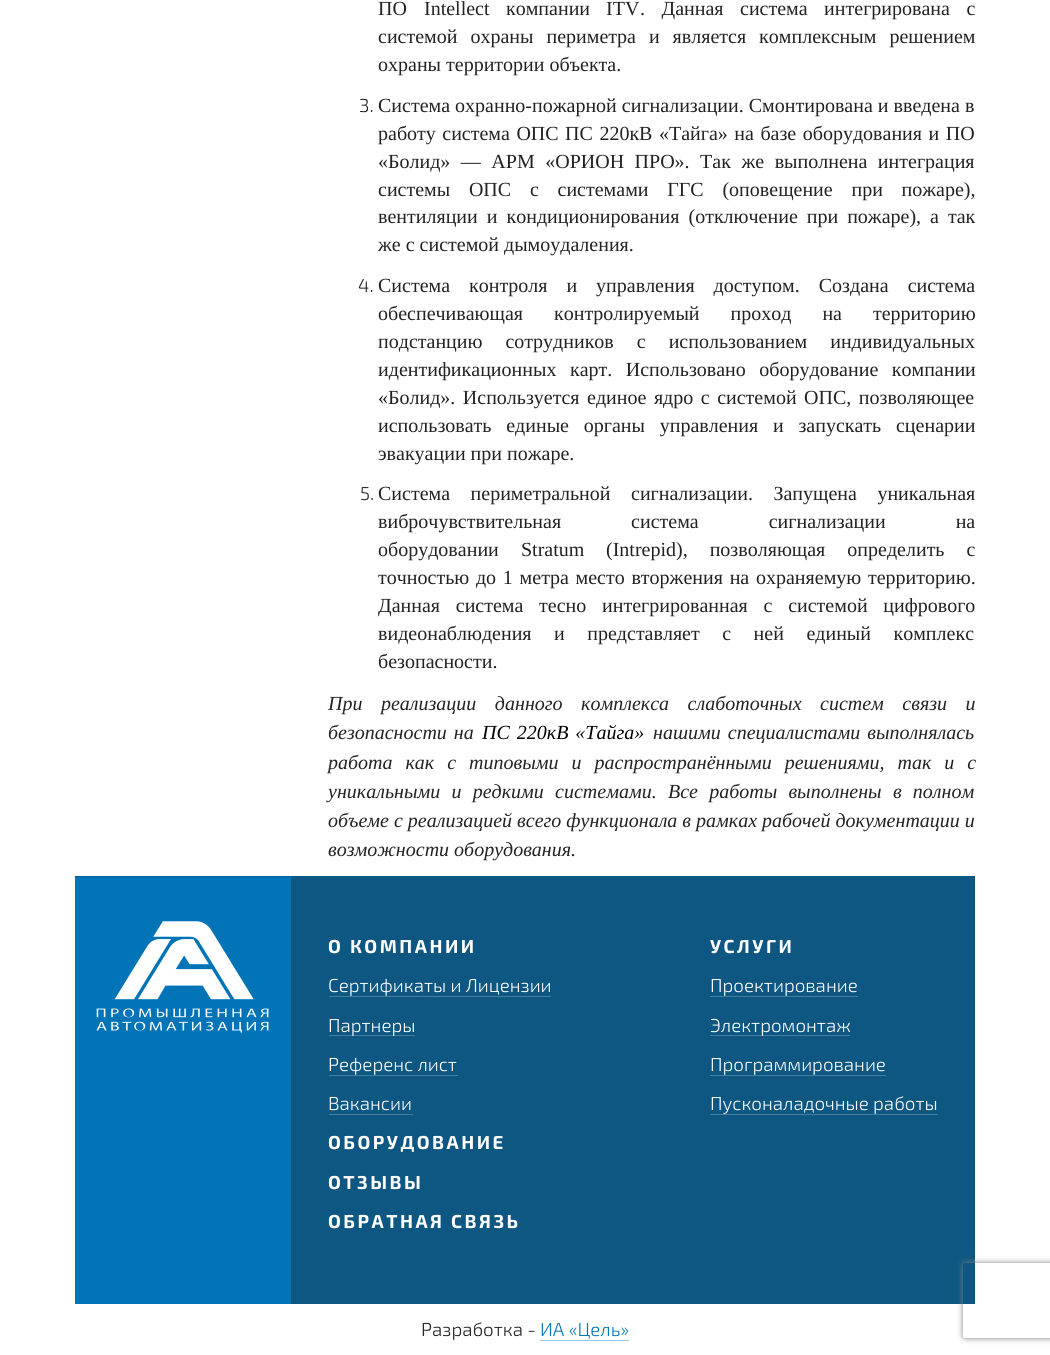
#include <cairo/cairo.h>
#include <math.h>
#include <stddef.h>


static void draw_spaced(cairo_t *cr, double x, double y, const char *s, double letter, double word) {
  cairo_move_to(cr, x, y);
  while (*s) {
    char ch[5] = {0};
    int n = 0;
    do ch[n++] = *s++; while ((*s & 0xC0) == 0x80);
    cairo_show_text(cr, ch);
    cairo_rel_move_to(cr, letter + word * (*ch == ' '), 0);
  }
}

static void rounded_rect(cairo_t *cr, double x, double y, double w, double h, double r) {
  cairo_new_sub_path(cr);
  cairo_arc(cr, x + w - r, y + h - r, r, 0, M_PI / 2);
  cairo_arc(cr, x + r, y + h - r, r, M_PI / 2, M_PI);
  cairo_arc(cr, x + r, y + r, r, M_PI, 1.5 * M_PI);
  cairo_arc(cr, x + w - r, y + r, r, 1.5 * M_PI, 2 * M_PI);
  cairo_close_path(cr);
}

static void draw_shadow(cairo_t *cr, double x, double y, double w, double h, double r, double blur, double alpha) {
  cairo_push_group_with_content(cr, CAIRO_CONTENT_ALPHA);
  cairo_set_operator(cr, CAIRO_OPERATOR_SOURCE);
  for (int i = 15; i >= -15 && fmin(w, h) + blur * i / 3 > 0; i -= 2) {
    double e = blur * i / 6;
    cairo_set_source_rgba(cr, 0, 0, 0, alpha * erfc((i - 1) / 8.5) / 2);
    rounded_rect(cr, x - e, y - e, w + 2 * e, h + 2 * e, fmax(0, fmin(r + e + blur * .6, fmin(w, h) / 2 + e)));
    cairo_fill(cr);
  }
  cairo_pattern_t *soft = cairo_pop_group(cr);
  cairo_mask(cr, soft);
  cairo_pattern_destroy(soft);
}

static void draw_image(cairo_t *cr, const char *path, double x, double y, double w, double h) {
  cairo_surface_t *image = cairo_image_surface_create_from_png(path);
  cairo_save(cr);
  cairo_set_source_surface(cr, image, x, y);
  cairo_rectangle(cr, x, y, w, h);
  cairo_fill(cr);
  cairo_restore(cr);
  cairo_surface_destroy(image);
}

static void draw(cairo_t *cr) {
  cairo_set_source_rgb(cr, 1, 1, 1);
  cairo_paint(cr);
  cairo_set_source_rgb(cr, 0, 116 / 255.0, 182 / 255.0);
  cairo_rectangle(cr, 75, 877, 216, 427);
  cairo_fill(cr);
  cairo_set_source_rgb(cr, 0, 92 / 255.0, 144 / 255.0);
  cairo_rectangle(cr, 75, 876, 216, 1);
  cairo_fill(cr);
  draw_image(cr, "images/1.png", 96, 921, 173, 112);
  cairo_set_source_rgb(cr, 13 / 255.0, 87 / 255.0, 130 / 255.0);
  cairo_rectangle(cr, 291, 876, 684, 428);
  cairo_fill(cr);
  cairo_set_source_rgb(cr, 68 / 255.0, 125 / 255.0, 158 / 255.0);
  cairo_rectangle(cr, 329, 996, 222, 1);
  cairo_fill(cr);
  cairo_rectangle(cr, 329, 1035, 86, 1);
  cairo_fill(cr);
  cairo_rectangle(cr, 329, 1075, 129, 1);
  cairo_fill(cr);
  cairo_rectangle(cr, 329, 1114, 84, 1);
  cairo_fill(cr);
  cairo_rectangle(cr, 710, 996, 148, 1);
  cairo_fill(cr);
  cairo_rectangle(cr, 710, 1035, 140, 1);
  cairo_fill(cr);
  cairo_rectangle(cr, 710, 1075, 176, 1);
  cairo_fill(cr);
  cairo_rectangle(cr, 710, 1114, 228, 1);
  cairo_fill(cr);
  cairo_set_source_rgb(cr, 153 / 255.0, 199 / 255.0, 226 / 255.0);
  cairo_rectangle(cr, 540, 1340, 89, 1);
  cairo_fill(cr);
  cairo_save(cr);
  cairo_set_fill_rule(cr, CAIRO_FILL_RULE_EVEN_ODD);
  cairo_new_path(cr);
  cairo_move_to(cr, 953, 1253);
  cairo_line_to(cr, 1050, 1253);
  cairo_line_to(cr, 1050, 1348);
  cairo_line_to(cr, 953, 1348);
  cairo_close_path(cr);
  cairo_move_to(cr, 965.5, 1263);
  cairo_line_to(cr, 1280.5, 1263);
  cairo_curve_to(cr, 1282, 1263, 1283, 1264, 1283, 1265.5);
  cairo_line_to(cr, 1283, 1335.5);
  cairo_curve_to(cr, 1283, 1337, 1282, 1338, 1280.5, 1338);
  cairo_line_to(cr, 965.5, 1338);
  cairo_curve_to(cr, 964, 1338, 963, 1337, 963, 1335.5);
  cairo_line_to(cr, 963, 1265.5);
  cairo_curve_to(cr, 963, 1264, 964, 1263, 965.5, 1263);
  cairo_close_path(cr);
  cairo_clip(cr);
  cairo_set_source_rgb(cr, 128 / 255.0, 128 / 255.0, 128 / 255.0);
  draw_shadow(cr, 963, 1263, 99, 75, 2.5, 3, 1);
  cairo_restore(cr);
  cairo_select_font_face(cr, "Liberation Serif", CAIRO_FONT_SLANT_NORMAL, CAIRO_FONT_WEIGHT_NORMAL);
  cairo_set_font_size(cr, 20);
  cairo_set_source_rgb(cr, 34 / 255.0, 34 / 255.0, 34 / 255.0);
  cairo_move_to(cr, 378, 15);
  cairo_show_text(cr, "ПО");
  cairo_move_to(cr, 424, 15);
  cairo_show_text(cr, "Intellect");
  cairo_move_to(cr, 506, 15);
  cairo_show_text(cr, "компании");
  cairo_move_to(cr, 606, 15);
  cairo_show_text(cr, "ITV");
  draw_spaced(cr, 640, 15, ". Данная система интегрирована с", 0, 11.5);
  draw_spaced(cr, 378, 43, "системой охраны периметра и является комплексным решением", 0, 8);
  cairo_move_to(cr, 378, 71);
  cairo_show_text(cr, "охраны территории объекта.");
  cairo_select_font_face(cr, "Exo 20 Light", CAIRO_FONT_SLANT_NORMAL, CAIRO_FONT_WEIGHT_NORMAL);
  cairo_set_font_size(cr, 18.75);
  cairo_move_to(cr, 359, 112);
  cairo_show_text(cr, "3.");
  cairo_select_font_face(cr, "Liberation Serif", CAIRO_FONT_SLANT_NORMAL, CAIRO_FONT_WEIGHT_NORMAL);
  cairo_set_font_size(cr, 20);
  cairo_move_to(cr, 378, 112);
  cairo_show_text(cr, "Система охранно-пожарной сигнализации. Смонтирована и введена в");
  draw_spaced(cr, 378, 140, "работу система ОПС ПС 220кВ «Тайга» на базе оборудования и ПО", 0, 1.5);
  draw_spaced(cr, 378, 168, "«Болид» — АРМ «ОРИОН ПРО». Так же выполнена интеграция", 0, 5.5);
  draw_spaced(cr, 378, 196, "системы ОПС с системами ГГС (оповещение при пожаре),", 0, 13.75);
  draw_spaced(cr, 378, 223, "вентиляции и кондиционирования (отключение при пожаре), а так", 0, 4);
  cairo_move_to(cr, 378, 251);
  cairo_show_text(cr, "же с системой дымоудаления.");
  cairo_select_font_face(cr, "Exo 20 Light", CAIRO_FONT_SLANT_NORMAL, CAIRO_FONT_WEIGHT_NORMAL);
  cairo_set_font_size(cr, 18.75);
  cairo_move_to(cr, 358, 292);
  cairo_show_text(cr, "4.");
  cairo_select_font_face(cr, "Liberation Serif", CAIRO_FONT_SLANT_NORMAL, CAIRO_FONT_WEIGHT_NORMAL);
  cairo_set_font_size(cr, 20);
  draw_spaced(cr, 378, 292, "Система контроля и управления доступом. Создана система", 0, 14);
  draw_spaced(cr, 378, 320, "обеспечивающая контролируемый проход на территорию", 0, 26);
  draw_spaced(cr, 378, 348, "подстанцию сотрудников с использованием индивидуальных", 0, 18);
  draw_spaced(cr, 378, 376, "идентификационных карт. Использовано оборудование компании", 0, 8.5);
  draw_spaced(cr, 378, 404, "«Болид». Используется единое ядро с системой ОПС, позволяющее", 0, 2.5);
  draw_spaced(cr, 378, 432, "использовать единые органы управления и запускать сценарии", 0, 9.75);
  cairo_move_to(cr, 378, 460);
  cairo_show_text(cr, "эвакуации при пожаре.");
  cairo_select_font_face(cr, "Exo 20 Light", CAIRO_FONT_SLANT_NORMAL, CAIRO_FONT_WEIGHT_NORMAL);
  cairo_set_font_size(cr, 18.75);
  cairo_move_to(cr, 360, 500);
  cairo_show_text(cr, "5.");
  cairo_select_font_face(cr, "Liberation Serif", CAIRO_FONT_SLANT_NORMAL, CAIRO_FONT_WEIGHT_NORMAL);
  cairo_set_font_size(cr, 20);
  draw_spaced(cr, 378, 500, "Система периметральной сигнализации. Запущена уникальная", 0, 15.5);
  draw_spaced(cr, 378, 528, "виброчувствительная система сигнализации на", 0, 65);
  cairo_move_to(cr, 378, 556);
  cairo_show_text(cr, "оборудовании");
  cairo_move_to(cr, 521, 556);
  cairo_show_text(cr, "Stratum");
  cairo_move_to(cr, 606, 556);
  cairo_show_text(cr, "(Intrepid");
  draw_spaced(cr, 676, 556, "), позволяющая определить с", 0, 17);
  draw_spaced(cr, 378, 584, "точностью до 1 метра место вторжения на охраняемую территорию.", 0, 1.75);
  draw_spaced(cr, 378, 612, "Данная система тесно интегрированная с системой цифрового", 0, 10.75);
  draw_spaced(cr, 378, 640, "видеонаблюдения и представляет с ней единый комплекс", 0, 17.5);
  cairo_move_to(cr, 378, 668);
  cairo_show_text(cr, "безопасности.");
  cairo_select_font_face(cr, "Liberation Serif", CAIRO_FONT_SLANT_ITALIC, CAIRO_FONT_WEIGHT_NORMAL);
  draw_spaced(cr, 328, 710, "При реализации данного комплекса слаботочных систем связи и", 0, 13.5);
  draw_spaced(cr, 328, 739, "безопасности на", 0, 2);
  cairo_set_source_rgb(cr, 0, 0, 0);
  draw_spaced(cr, 482, 739, "ПС 220кВ «Тайга»", 0, 2);
  cairo_set_source_rgb(cr, 34 / 255.0, 34 / 255.0, 34 / 255.0);
  draw_spaced(cr, 653, 739, "нашими специалистами выполнялась", 0, 2);
  draw_spaced(cr, 328, 769, "работа как с типовыми и распространёнными решениями, так и с", 0, 8);
  draw_spaced(cr, 328, 798, "уникальными и редкими системами. Все работы выполнены в полном", 0, 6.25);
  cairo_move_to(cr, 328, 827);
  cairo_show_text(cr, "объеме с реализацией всего функционала в рамках рабочей документации и");
  cairo_move_to(cr, 328, 856);
  cairo_show_text(cr, "возможности оборудования.");
  cairo_select_font_face(cr, "Exo 20", CAIRO_FONT_SLANT_NORMAL, CAIRO_FONT_WEIGHT_BOLD);
  cairo_set_font_size(cr, 18.75);
  cairo_set_source_rgb(cr, 1, 1, 1);
  draw_spaced(cr, 328, 953, "О КОМПАНИИ", 2.5, 0);
  cairo_select_font_face(cr, "Exo 20 Light", CAIRO_FONT_SLANT_NORMAL, CAIRO_FONT_WEIGHT_NORMAL);
  cairo_move_to(cr, 328, 992);
  cairo_show_text(cr, "Сертификаты и Лицензии");
  cairo_move_to(cr, 328, 1032);
  cairo_show_text(cr, "Партнеры");
  cairo_move_to(cr, 328, 1071);
  cairo_show_text(cr, "Референс лист");
  cairo_move_to(cr, 328, 1110);
  cairo_show_text(cr, "Вакансии");
  cairo_select_font_face(cr, "Exo 20", CAIRO_FONT_SLANT_NORMAL, CAIRO_FONT_WEIGHT_BOLD);
  draw_spaced(cr, 710, 953, "УСЛУГИ", 2.5, 0);
  cairo_select_font_face(cr, "Exo 20 Light", CAIRO_FONT_SLANT_NORMAL, CAIRO_FONT_WEIGHT_NORMAL);
  cairo_move_to(cr, 710, 992);
  cairo_show_text(cr, "Проектирование");
  cairo_move_to(cr, 710, 1032);
  cairo_show_text(cr, "Электромонтаж");
  cairo_move_to(cr, 710, 1071);
  cairo_show_text(cr, "Программирование");
  cairo_move_to(cr, 710, 1110);
  cairo_show_text(cr, "Пусконаладочные работы");
  cairo_select_font_face(cr, "Exo 20", CAIRO_FONT_SLANT_NORMAL, CAIRO_FONT_WEIGHT_BOLD);
  draw_spaced(cr, 328, 1149, "ОБОРУДОВАНИЕ", 2.5, 0);
  draw_spaced(cr, 328, 1189, "ОТЗЫВЫ", 2.5, 0);
  draw_spaced(cr, 328, 1228, "ОБРАТНАЯ СВЯЗЬ", 2.5, 0);
  cairo_select_font_face(cr, "Exo 20 Light", CAIRO_FONT_SLANT_NORMAL, CAIRO_FONT_WEIGHT_NORMAL);
  cairo_set_source_rgb(cr, 34 / 255.0, 34 / 255.0, 34 / 255.0);
  cairo_move_to(cr, 421, 1336);
  cairo_show_text(cr, "Разработка -");
  cairo_set_source_rgb(cr, 0, 116 / 255.0, 182 / 255.0);
  cairo_move_to(cr, 540, 1336);
  cairo_show_text(cr, "ИА «Цель»");
}

int main(void) {
  cairo_surface_t *surface = cairo_image_surface_create(CAIRO_FORMAT_RGB24, 1050, 1355);
  cairo_t *cr = cairo_create(surface);
  cairo_font_options_t *options = cairo_font_options_create();
  cairo_font_options_set_hint_metrics(options, CAIRO_HINT_METRICS_OFF);
  cairo_font_options_set_hint_style(options, CAIRO_HINT_STYLE_NONE);
  cairo_set_font_options(cr, options);
  cairo_set_miter_limit(cr, 4);
  draw(cr);
  cairo_surface_write_to_png(surface, "out.png");
  cairo_font_options_destroy(options);
  cairo_destroy(cr);
  cairo_surface_destroy(surface);
  return 0;
}
